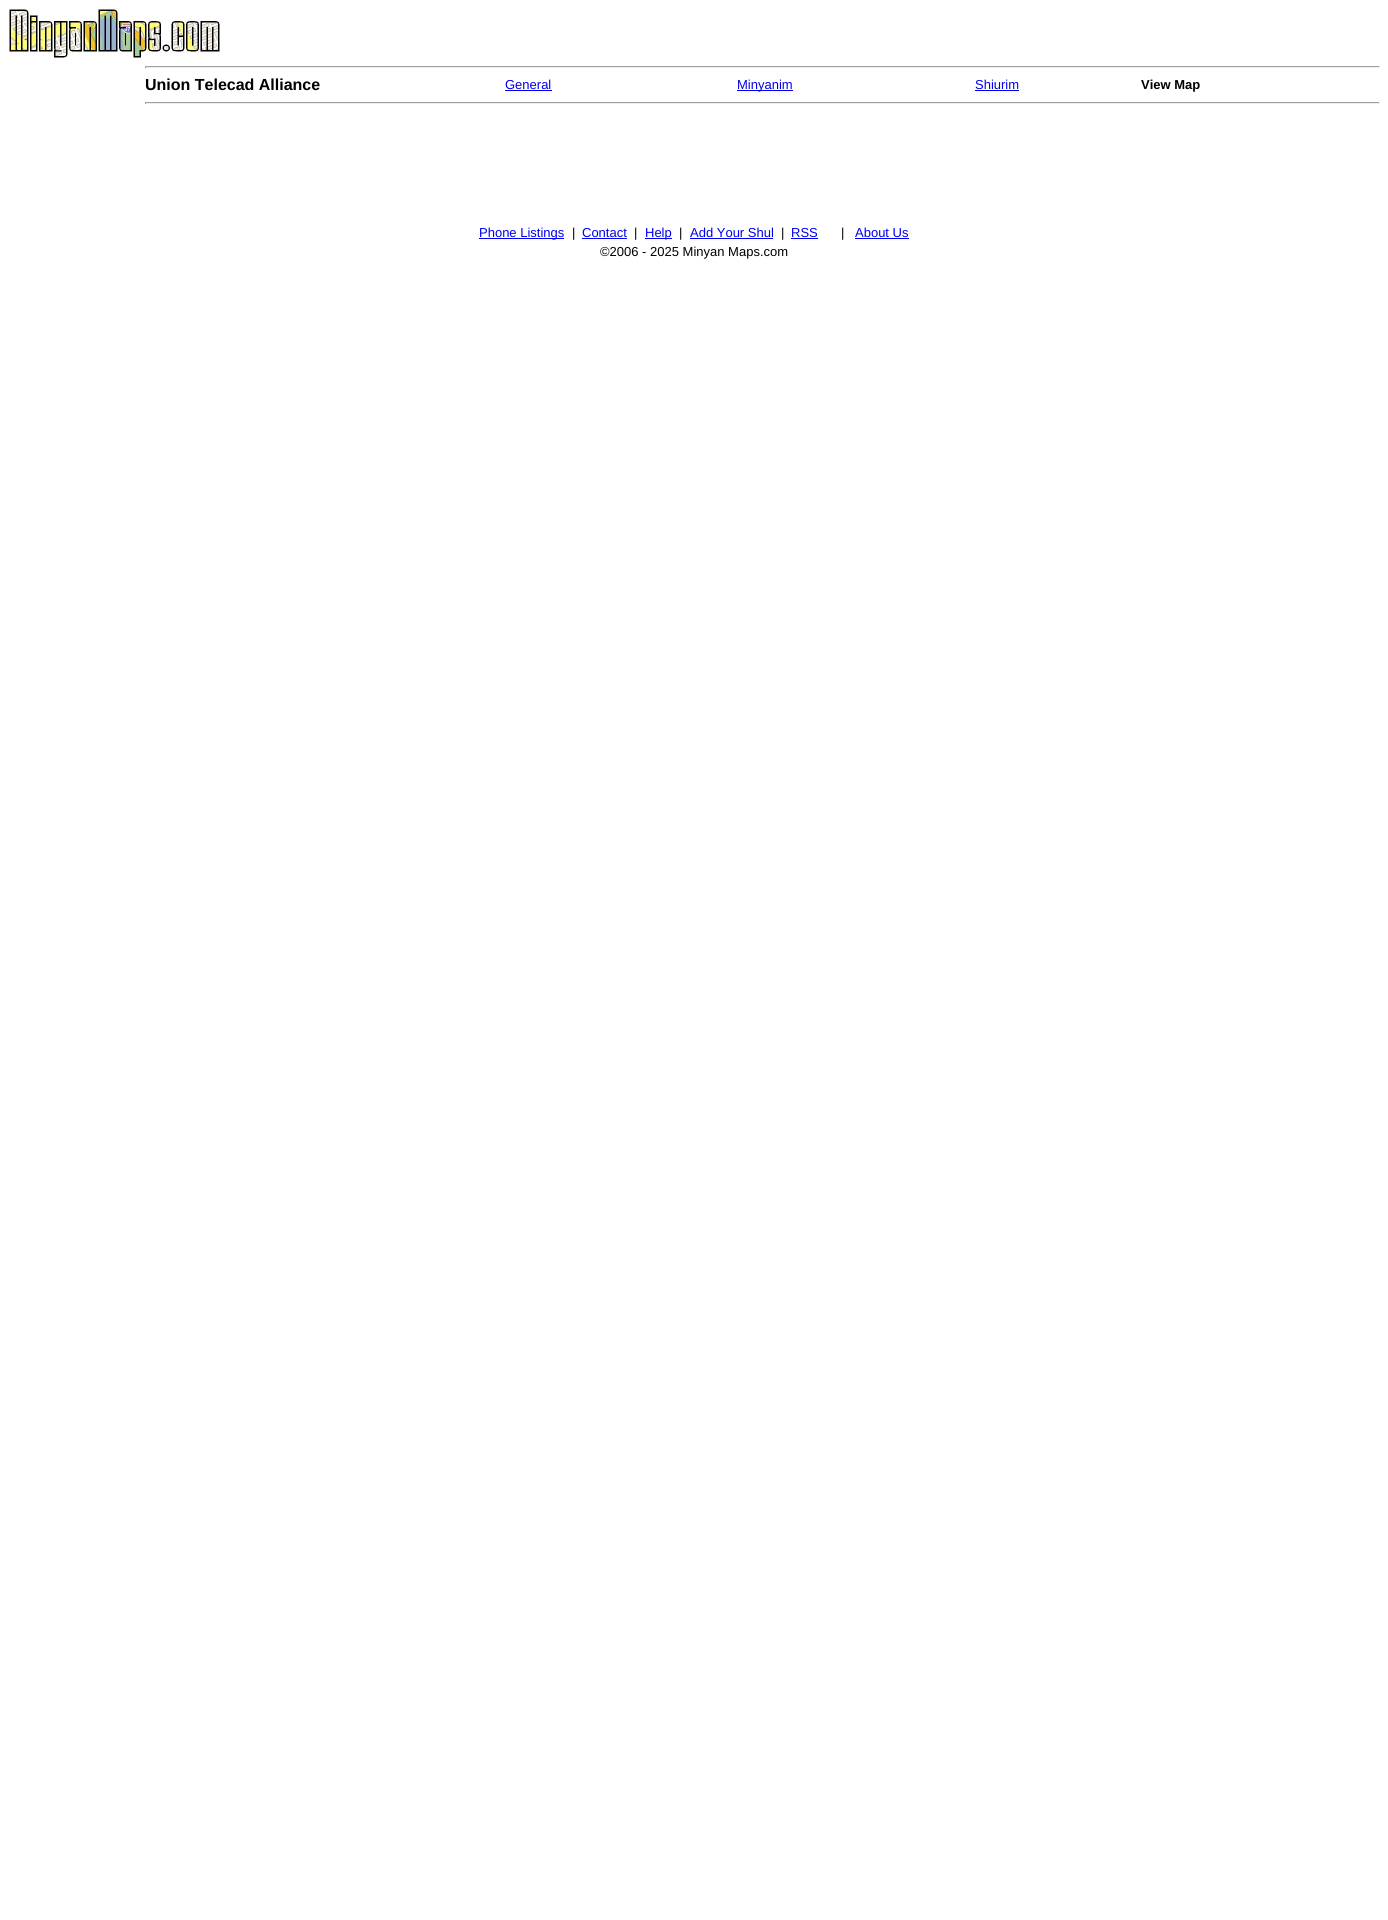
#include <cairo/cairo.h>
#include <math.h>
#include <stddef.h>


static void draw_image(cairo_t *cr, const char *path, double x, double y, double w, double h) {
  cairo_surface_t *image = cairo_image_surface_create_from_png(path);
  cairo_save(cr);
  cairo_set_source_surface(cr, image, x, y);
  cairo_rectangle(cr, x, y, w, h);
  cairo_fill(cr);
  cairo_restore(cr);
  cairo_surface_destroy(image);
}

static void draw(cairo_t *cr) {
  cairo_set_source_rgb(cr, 1, 1, 1);
  cairo_paint(cr);
  draw_image(cr, "images/1.png", 9, 9, 211, 49);
  cairo_set_source_rgb(cr, 159 / 255.0, 159 / 255.0, 159 / 255.0);
  cairo_rectangle(cr, 145, 66, 1235, 1);
  cairo_fill(cr);
  cairo_set_source_rgb(cr, 238 / 255.0, 238 / 255.0, 238 / 255.0);
  cairo_rectangle(cr, 1379, 66, 1, 2);
  cairo_fill(cr);
  cairo_rectangle(cr, 145, 67, 1235, 1);
  cairo_fill(cr);
  cairo_set_source_rgb(cr, 159 / 255.0, 159 / 255.0, 159 / 255.0);
  cairo_rectangle(cr, 145, 66, 1, 2);
  cairo_fill(cr);
  cairo_set_source_rgb(cr, 0, 0, 238 / 255.0);
  cairo_rectangle(cr, 505, 90, 47, 1);
  cairo_fill(cr);
  cairo_rectangle(cr, 737, 90, 56, 1);
  cairo_fill(cr);
  cairo_rectangle(cr, 975, 90, 44, 1);
  cairo_fill(cr);
  cairo_set_source_rgb(cr, 159 / 255.0, 159 / 255.0, 159 / 255.0);
  cairo_rectangle(cr, 145, 102, 1235, 1);
  cairo_fill(cr);
  cairo_set_source_rgb(cr, 238 / 255.0, 238 / 255.0, 238 / 255.0);
  cairo_rectangle(cr, 1379, 102, 1, 2);
  cairo_fill(cr);
  cairo_rectangle(cr, 145, 103, 1235, 1);
  cairo_fill(cr);
  cairo_set_source_rgb(cr, 159 / 255.0, 159 / 255.0, 159 / 255.0);
  cairo_rectangle(cr, 145, 102, 1, 2);
  cairo_fill(cr);
  cairo_set_source_rgb(cr, 0, 0, 238 / 255.0);
  cairo_rectangle(cr, 479, 238, 85, 1);
  cairo_fill(cr);
  cairo_rectangle(cr, 582, 238, 45, 1);
  cairo_fill(cr);
  cairo_rectangle(cr, 645, 238, 27, 1);
  cairo_fill(cr);
  cairo_rectangle(cr, 690, 238, 83, 1);
  cairo_fill(cr);
  cairo_rectangle(cr, 791, 238, 27, 1);
  cairo_fill(cr);
  cairo_rectangle(cr, 855, 238, 54, 1);
  cairo_fill(cr);
  cairo_select_font_face(cr, "Liberation Sans", CAIRO_FONT_SLANT_NORMAL, CAIRO_FONT_WEIGHT_BOLD);
  cairo_set_font_size(cr, 16);
  cairo_set_source_rgb(cr, 0, 0, 0);
  cairo_move_to(cr, 145, 90);
  cairo_show_text(cr, "Union Telecad Alliance");
  cairo_select_font_face(cr, "Liberation Sans", CAIRO_FONT_SLANT_NORMAL, CAIRO_FONT_WEIGHT_NORMAL);
  cairo_set_font_size(cr, 13);
  cairo_set_source_rgb(cr, 0, 0, 238 / 255.0);
  cairo_move_to(cr, 505, 89);
  cairo_show_text(cr, "General");
  cairo_move_to(cr, 737, 89);
  cairo_show_text(cr, "Minyanim");
  cairo_move_to(cr, 975, 89);
  cairo_show_text(cr, "Shiurim");
  cairo_select_font_face(cr, "Liberation Sans", CAIRO_FONT_SLANT_NORMAL, CAIRO_FONT_WEIGHT_BOLD);
  cairo_set_source_rgb(cr, 0, 0, 0);
  cairo_move_to(cr, 1141, 89);
  cairo_show_text(cr, "View Map");
  cairo_select_font_face(cr, "Liberation Sans", CAIRO_FONT_SLANT_NORMAL, CAIRO_FONT_WEIGHT_NORMAL);
  cairo_set_source_rgb(cr, 0, 0, 238 / 255.0);
  cairo_move_to(cr, 479, 237);
  cairo_show_text(cr, "Phone Listings");
  cairo_set_source_rgb(cr, 0, 0, 0);
  cairo_move_to(cr, 572, 237);
  cairo_show_text(cr, "|");
  cairo_set_source_rgb(cr, 0, 0, 238 / 255.0);
  cairo_move_to(cr, 582, 237);
  cairo_show_text(cr, "Contact");
  cairo_set_source_rgb(cr, 0, 0, 0);
  cairo_move_to(cr, 634, 237);
  cairo_show_text(cr, "|");
  cairo_set_source_rgb(cr, 0, 0, 238 / 255.0);
  cairo_move_to(cr, 645, 237);
  cairo_show_text(cr, "Help");
  cairo_set_source_rgb(cr, 0, 0, 0);
  cairo_move_to(cr, 679, 237);
  cairo_show_text(cr, "|");
  cairo_set_source_rgb(cr, 0, 0, 238 / 255.0);
  cairo_move_to(cr, 690, 237);
  cairo_show_text(cr, "Add Your Shul");
  cairo_set_source_rgb(cr, 0, 0, 0);
  cairo_move_to(cr, 781, 237);
  cairo_show_text(cr, "|");
  cairo_set_source_rgb(cr, 0, 0, 238 / 255.0);
  cairo_move_to(cr, 791, 237);
  cairo_show_text(cr, "RSS");
  cairo_set_source_rgb(cr, 0, 0, 0);
  cairo_move_to(cr, 841, 237);
  cairo_show_text(cr, "|");
  cairo_set_source_rgb(cr, 0, 0, 238 / 255.0);
  cairo_move_to(cr, 855, 237);
  cairo_show_text(cr, "About Us");
  cairo_set_source_rgb(cr, 0, 0, 0);
  cairo_move_to(cr, 600, 256);
  cairo_show_text(cr, "©2006 - 2025 Minyan Maps.com");
}

int main(void) {
  cairo_surface_t *surface = cairo_image_surface_create(CAIRO_FORMAT_RGB24, 1388, 1920);
  cairo_t *cr = cairo_create(surface);
  cairo_font_options_t *options = cairo_font_options_create();
  cairo_font_options_set_hint_metrics(options, CAIRO_HINT_METRICS_OFF);
  cairo_font_options_set_hint_style(options, CAIRO_HINT_STYLE_NONE);
  cairo_set_font_options(cr, options);
  cairo_set_miter_limit(cr, 4);
  draw(cr);
  cairo_surface_write_to_png(surface, "out.png");
  cairo_font_options_destroy(options);
  cairo_destroy(cr);
  cairo_surface_destroy(surface);
  return 0;
}
